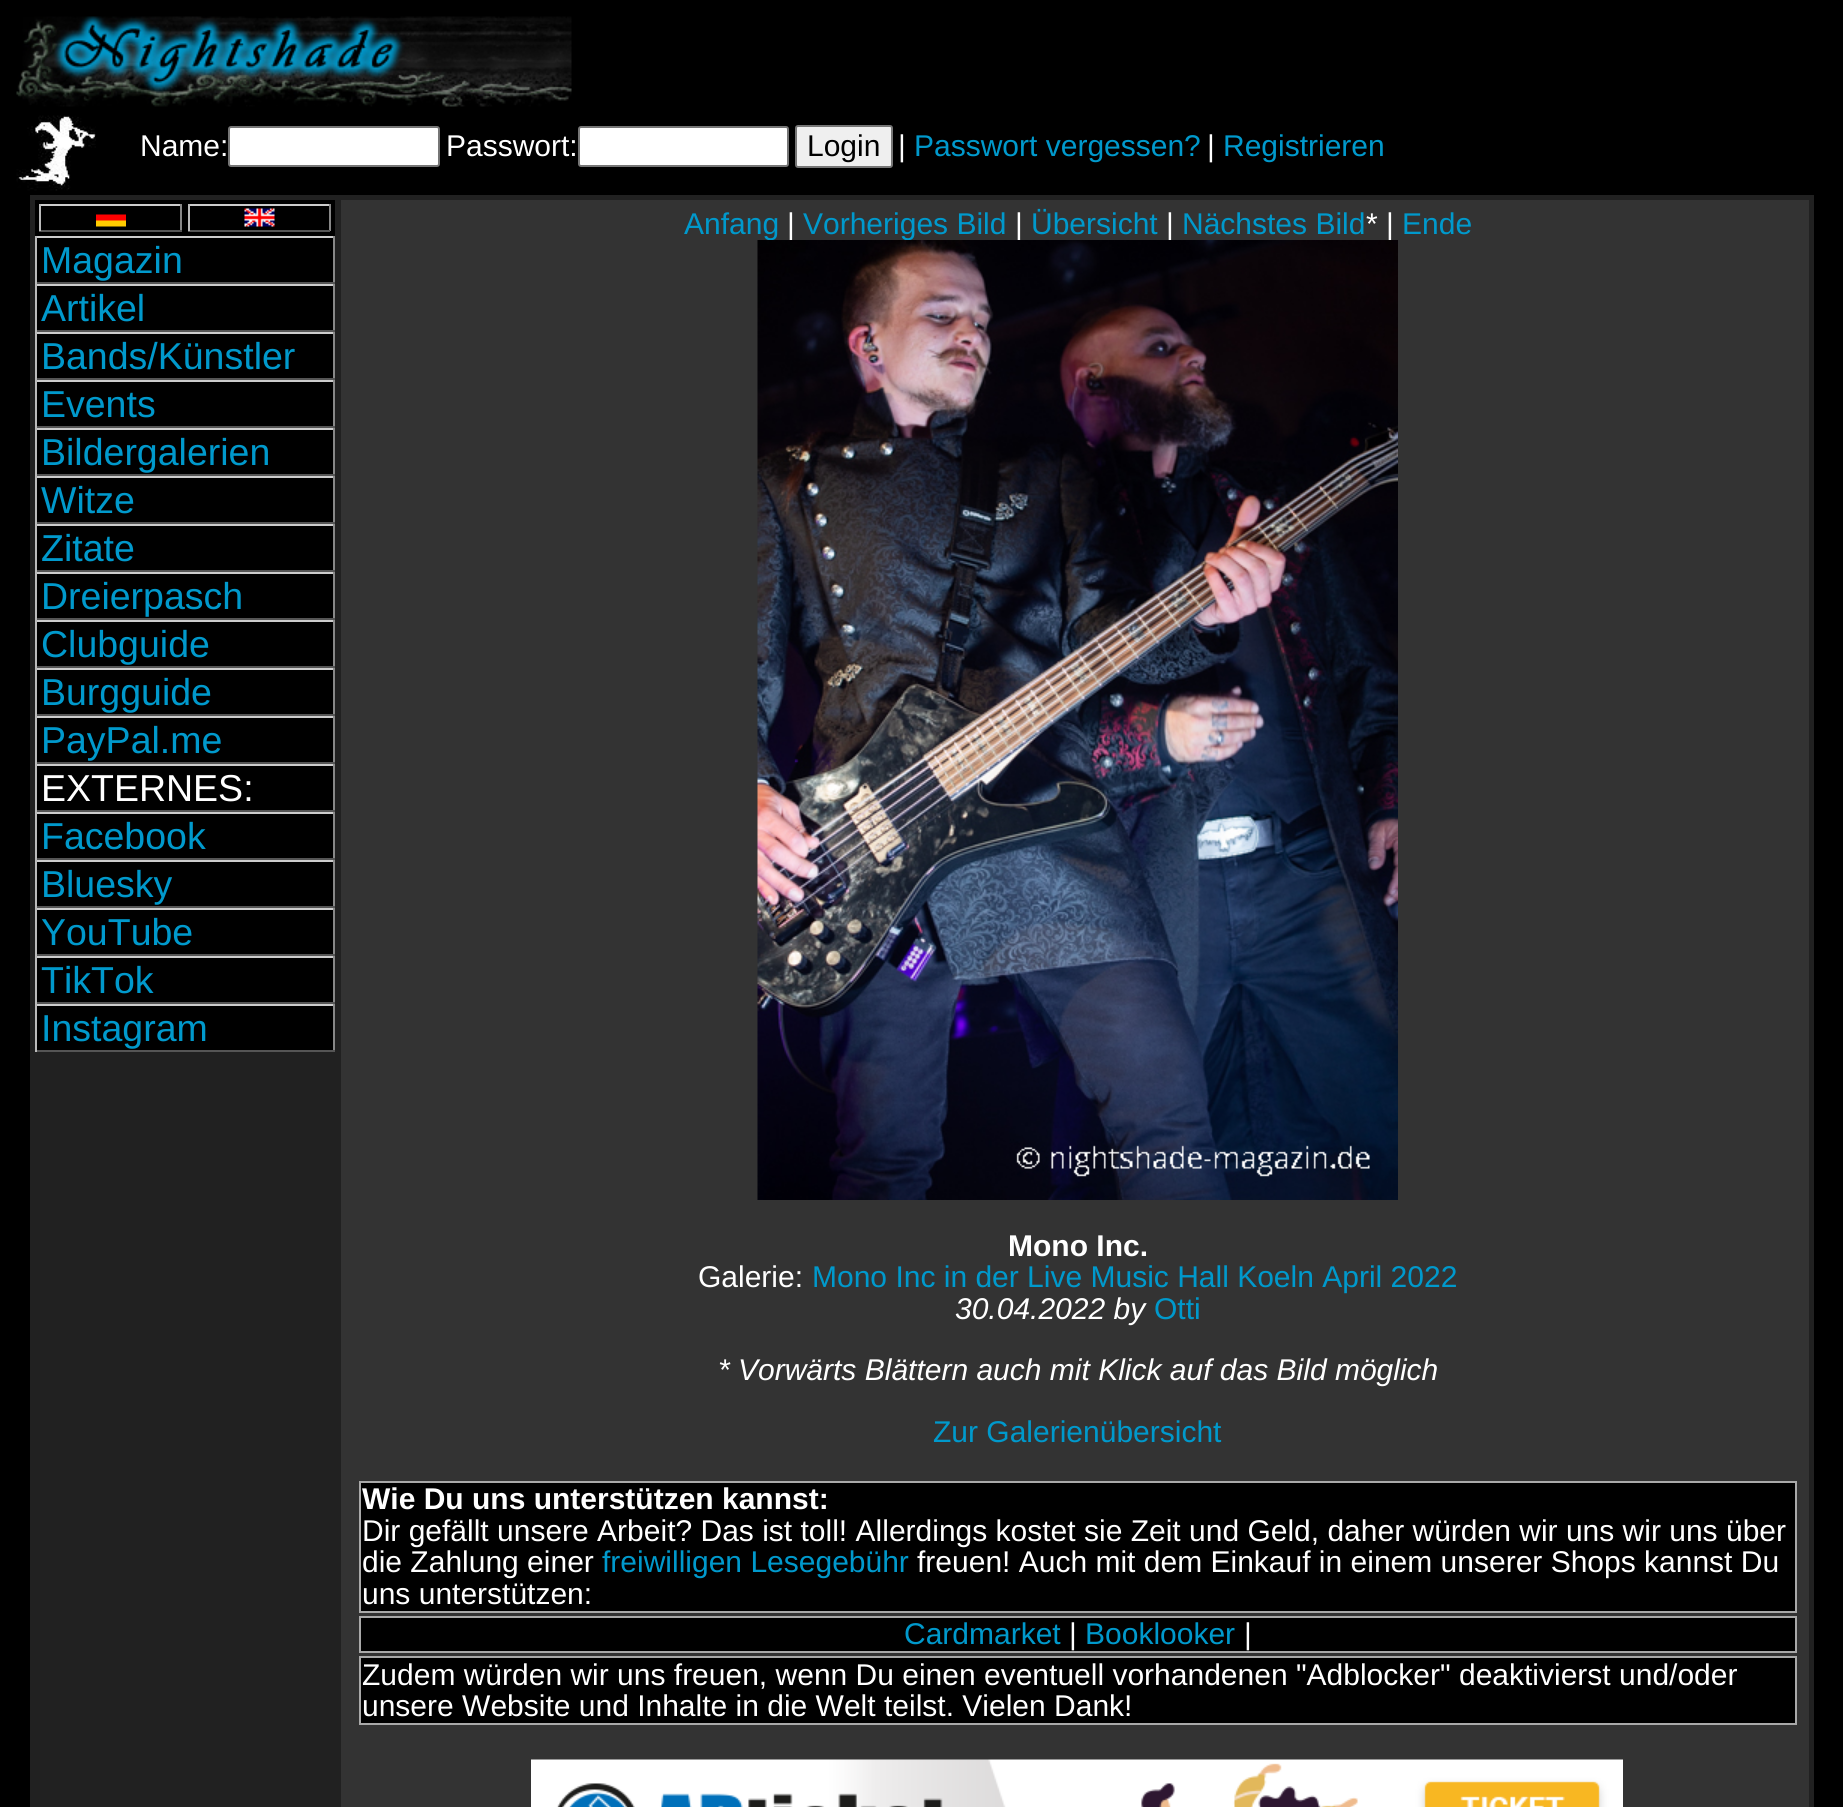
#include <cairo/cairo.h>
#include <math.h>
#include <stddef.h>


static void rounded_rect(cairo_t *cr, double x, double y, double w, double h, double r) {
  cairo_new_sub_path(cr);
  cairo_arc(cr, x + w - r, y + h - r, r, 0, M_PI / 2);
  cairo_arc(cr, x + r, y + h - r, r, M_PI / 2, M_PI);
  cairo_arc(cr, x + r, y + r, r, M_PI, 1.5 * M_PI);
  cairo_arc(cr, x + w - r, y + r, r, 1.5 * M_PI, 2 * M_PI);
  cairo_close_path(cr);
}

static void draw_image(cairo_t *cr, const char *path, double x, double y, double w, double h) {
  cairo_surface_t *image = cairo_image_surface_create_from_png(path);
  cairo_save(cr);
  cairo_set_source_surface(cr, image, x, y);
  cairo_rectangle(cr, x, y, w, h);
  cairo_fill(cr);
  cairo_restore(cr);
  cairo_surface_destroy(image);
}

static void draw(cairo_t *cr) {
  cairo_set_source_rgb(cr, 0, 0, 0);
  cairo_paint(cr);
  draw_image(cr, "images/1.png", 16, 16, 556, 91);
  draw_image(cr, "images/2.png", 16, 115, 80, 76);
  cairo_set_source_rgb(cr, 1, 1, 1);
  rounded_rect(cr, 229, 127, 210, 39, 2);
  cairo_fill_preserve(cr);
  cairo_set_source_rgb(cr, 118 / 255.0, 118 / 255.0, 118 / 255.0);
  cairo_stroke(cr);
  cairo_set_source_rgb(cr, 1, 1, 1);
  rounded_rect(cr, 579, 127, 209, 39, 2);
  cairo_fill_preserve(cr);
  cairo_set_source_rgb(cr, 118 / 255.0, 118 / 255.0, 118 / 255.0);
  cairo_stroke(cr);
  cairo_set_source_rgb(cr, 239 / 255.0, 239 / 255.0, 239 / 255.0);
  rounded_rect(cr, 796, 126, 96, 41, 2);
  cairo_fill_preserve(cr);
  cairo_set_source_rgb(cr, 118 / 255.0, 118 / 255.0, 118 / 255.0);
  cairo_stroke(cr);
  cairo_set_source_rgb(cr, 33 / 255.0, 33 / 255.0, 33 / 255.0);
  cairo_rectangle(cr, 30, 195, 1784, 1612);
  cairo_fill(cr);
  cairo_set_source_rgb(cr, 0, 0, 0);
  cairo_rectangle(cr, 35, 200, 300, 36);
  cairo_fill(cr);
  cairo_set_source_rgb(cr, 204 / 255.0, 204 / 255.0, 204 / 255.0);
  cairo_rectangle(cr, 39, 204, 143, 2);
  cairo_fill(cr);
  cairo_set_source_rgb(cr, 136 / 255.0, 136 / 255.0, 136 / 255.0);
  cairo_rectangle(cr, 180, 204, 2, 27);
  cairo_fill(cr);
  cairo_set_source_rgb(cr, 85 / 255.0, 85 / 255.0, 85 / 255.0);
  cairo_rectangle(cr, 39, 230, 143, 2);
  cairo_fill(cr);
  cairo_set_source_rgb(cr, 187 / 255.0, 187 / 255.0, 187 / 255.0);
  cairo_rectangle(cr, 39, 204, 2, 27);
  cairo_fill(cr);
  draw_image(cr, "images/3.png", 96, 214, 30, 13);
  cairo_set_source_rgb(cr, 204 / 255.0, 204 / 255.0, 204 / 255.0);
  cairo_rectangle(cr, 188, 204, 142, 2);
  cairo_fill(cr);
  cairo_set_source_rgb(cr, 136 / 255.0, 136 / 255.0, 136 / 255.0);
  cairo_rectangle(cr, 329, 204, 2, 27);
  cairo_fill(cr);
  cairo_set_source_rgb(cr, 85 / 255.0, 85 / 255.0, 85 / 255.0);
  cairo_rectangle(cr, 188, 230, 142, 2);
  cairo_fill(cr);
  cairo_set_source_rgb(cr, 187 / 255.0, 187 / 255.0, 187 / 255.0);
  cairo_rectangle(cr, 188, 204, 2, 27);
  cairo_fill(cr);
  draw_image(cr, "images/4.png", 244, 208, 31, 19);
  cairo_set_source_rgb(cr, 0, 0, 0);
  cairo_rectangle(cr, 37, 238, 296, 44);
  cairo_fill(cr);
  cairo_set_source_rgb(cr, 204 / 255.0, 204 / 255.0, 204 / 255.0);
  cairo_rectangle(cr, 35, 236, 300, 2);
  cairo_fill(cr);
  cairo_set_source_rgb(cr, 136 / 255.0, 136 / 255.0, 136 / 255.0);
  cairo_rectangle(cr, 333, 236, 2, 48);
  cairo_fill(cr);
  cairo_set_source_rgb(cr, 85 / 255.0, 85 / 255.0, 85 / 255.0);
  cairo_rectangle(cr, 35, 282, 300, 2);
  cairo_fill(cr);
  cairo_set_source_rgb(cr, 187 / 255.0, 187 / 255.0, 187 / 255.0);
  cairo_rectangle(cr, 35, 236, 2, 48);
  cairo_fill(cr);
  cairo_set_source_rgb(cr, 0, 0, 0);
  cairo_rectangle(cr, 37, 286, 296, 44);
  cairo_fill(cr);
  cairo_set_source_rgb(cr, 204 / 255.0, 204 / 255.0, 204 / 255.0);
  cairo_rectangle(cr, 35, 284, 300, 2);
  cairo_fill(cr);
  cairo_set_source_rgb(cr, 136 / 255.0, 136 / 255.0, 136 / 255.0);
  cairo_rectangle(cr, 333, 284, 2, 48);
  cairo_fill(cr);
  cairo_set_source_rgb(cr, 85 / 255.0, 85 / 255.0, 85 / 255.0);
  cairo_rectangle(cr, 35, 330, 300, 2);
  cairo_fill(cr);
  cairo_set_source_rgb(cr, 187 / 255.0, 187 / 255.0, 187 / 255.0);
  cairo_rectangle(cr, 35, 284, 2, 48);
  cairo_fill(cr);
  cairo_set_source_rgb(cr, 0, 0, 0);
  cairo_rectangle(cr, 37, 334, 296, 44);
  cairo_fill(cr);
  cairo_set_source_rgb(cr, 204 / 255.0, 204 / 255.0, 204 / 255.0);
  cairo_rectangle(cr, 35, 332, 300, 2);
  cairo_fill(cr);
  cairo_set_source_rgb(cr, 136 / 255.0, 136 / 255.0, 136 / 255.0);
  cairo_rectangle(cr, 333, 332, 2, 48);
  cairo_fill(cr);
  cairo_set_source_rgb(cr, 85 / 255.0, 85 / 255.0, 85 / 255.0);
  cairo_rectangle(cr, 35, 378, 300, 2);
  cairo_fill(cr);
  cairo_set_source_rgb(cr, 187 / 255.0, 187 / 255.0, 187 / 255.0);
  cairo_rectangle(cr, 35, 332, 2, 48);
  cairo_fill(cr);
  cairo_set_source_rgb(cr, 0, 0, 0);
  cairo_rectangle(cr, 37, 382, 296, 44);
  cairo_fill(cr);
  cairo_set_source_rgb(cr, 204 / 255.0, 204 / 255.0, 204 / 255.0);
  cairo_rectangle(cr, 35, 380, 300, 2);
  cairo_fill(cr);
  cairo_set_source_rgb(cr, 136 / 255.0, 136 / 255.0, 136 / 255.0);
  cairo_rectangle(cr, 333, 380, 2, 48);
  cairo_fill(cr);
  cairo_set_source_rgb(cr, 85 / 255.0, 85 / 255.0, 85 / 255.0);
  cairo_rectangle(cr, 35, 426, 300, 2);
  cairo_fill(cr);
  cairo_set_source_rgb(cr, 187 / 255.0, 187 / 255.0, 187 / 255.0);
  cairo_rectangle(cr, 35, 380, 2, 48);
  cairo_fill(cr);
  cairo_set_source_rgb(cr, 0, 0, 0);
  cairo_rectangle(cr, 37, 430, 296, 44);
  cairo_fill(cr);
  cairo_set_source_rgb(cr, 204 / 255.0, 204 / 255.0, 204 / 255.0);
  cairo_rectangle(cr, 35, 428, 300, 2);
  cairo_fill(cr);
  cairo_set_source_rgb(cr, 136 / 255.0, 136 / 255.0, 136 / 255.0);
  cairo_rectangle(cr, 333, 428, 2, 48);
  cairo_fill(cr);
  cairo_set_source_rgb(cr, 85 / 255.0, 85 / 255.0, 85 / 255.0);
  cairo_rectangle(cr, 35, 474, 300, 2);
  cairo_fill(cr);
  cairo_set_source_rgb(cr, 187 / 255.0, 187 / 255.0, 187 / 255.0);
  cairo_rectangle(cr, 35, 428, 2, 48);
  cairo_fill(cr);
  cairo_set_source_rgb(cr, 0, 0, 0);
  cairo_rectangle(cr, 37, 478, 296, 44);
  cairo_fill(cr);
  cairo_set_source_rgb(cr, 204 / 255.0, 204 / 255.0, 204 / 255.0);
  cairo_rectangle(cr, 35, 476, 300, 2);
  cairo_fill(cr);
  cairo_set_source_rgb(cr, 136 / 255.0, 136 / 255.0, 136 / 255.0);
  cairo_rectangle(cr, 333, 476, 2, 48);
  cairo_fill(cr);
  cairo_set_source_rgb(cr, 85 / 255.0, 85 / 255.0, 85 / 255.0);
  cairo_rectangle(cr, 35, 522, 300, 2);
  cairo_fill(cr);
  cairo_set_source_rgb(cr, 187 / 255.0, 187 / 255.0, 187 / 255.0);
  cairo_rectangle(cr, 35, 476, 2, 48);
  cairo_fill(cr);
  cairo_set_source_rgb(cr, 0, 0, 0);
  cairo_rectangle(cr, 37, 526, 296, 44);
  cairo_fill(cr);
  cairo_set_source_rgb(cr, 204 / 255.0, 204 / 255.0, 204 / 255.0);
  cairo_rectangle(cr, 35, 524, 300, 2);
  cairo_fill(cr);
  cairo_set_source_rgb(cr, 136 / 255.0, 136 / 255.0, 136 / 255.0);
  cairo_rectangle(cr, 333, 524, 2, 48);
  cairo_fill(cr);
  cairo_set_source_rgb(cr, 85 / 255.0, 85 / 255.0, 85 / 255.0);
  cairo_rectangle(cr, 35, 570, 300, 2);
  cairo_fill(cr);
  cairo_set_source_rgb(cr, 187 / 255.0, 187 / 255.0, 187 / 255.0);
  cairo_rectangle(cr, 35, 524, 2, 48);
  cairo_fill(cr);
  cairo_set_source_rgb(cr, 0, 0, 0);
  cairo_rectangle(cr, 37, 574, 296, 44);
  cairo_fill(cr);
  cairo_set_source_rgb(cr, 204 / 255.0, 204 / 255.0, 204 / 255.0);
  cairo_rectangle(cr, 35, 572, 300, 2);
  cairo_fill(cr);
  cairo_set_source_rgb(cr, 136 / 255.0, 136 / 255.0, 136 / 255.0);
  cairo_rectangle(cr, 333, 572, 2, 48);
  cairo_fill(cr);
  cairo_set_source_rgb(cr, 85 / 255.0, 85 / 255.0, 85 / 255.0);
  cairo_rectangle(cr, 35, 618, 300, 2);
  cairo_fill(cr);
  cairo_set_source_rgb(cr, 187 / 255.0, 187 / 255.0, 187 / 255.0);
  cairo_rectangle(cr, 35, 572, 2, 48);
  cairo_fill(cr);
  cairo_set_source_rgb(cr, 0, 0, 0);
  cairo_rectangle(cr, 37, 622, 296, 44);
  cairo_fill(cr);
  cairo_set_source_rgb(cr, 204 / 255.0, 204 / 255.0, 204 / 255.0);
  cairo_rectangle(cr, 35, 620, 300, 2);
  cairo_fill(cr);
  cairo_set_source_rgb(cr, 136 / 255.0, 136 / 255.0, 136 / 255.0);
  cairo_rectangle(cr, 333, 620, 2, 48);
  cairo_fill(cr);
  cairo_set_source_rgb(cr, 85 / 255.0, 85 / 255.0, 85 / 255.0);
  cairo_rectangle(cr, 35, 666, 300, 2);
  cairo_fill(cr);
  cairo_set_source_rgb(cr, 187 / 255.0, 187 / 255.0, 187 / 255.0);
  cairo_rectangle(cr, 35, 620, 2, 48);
  cairo_fill(cr);
  cairo_set_source_rgb(cr, 0, 0, 0);
  cairo_rectangle(cr, 37, 670, 296, 44);
  cairo_fill(cr);
  cairo_set_source_rgb(cr, 204 / 255.0, 204 / 255.0, 204 / 255.0);
  cairo_rectangle(cr, 35, 668, 300, 2);
  cairo_fill(cr);
  cairo_set_source_rgb(cr, 136 / 255.0, 136 / 255.0, 136 / 255.0);
  cairo_rectangle(cr, 333, 668, 2, 48);
  cairo_fill(cr);
  cairo_set_source_rgb(cr, 85 / 255.0, 85 / 255.0, 85 / 255.0);
  cairo_rectangle(cr, 35, 714, 300, 2);
  cairo_fill(cr);
  cairo_set_source_rgb(cr, 187 / 255.0, 187 / 255.0, 187 / 255.0);
  cairo_rectangle(cr, 35, 668, 2, 48);
  cairo_fill(cr);
  cairo_set_source_rgb(cr, 0, 0, 0);
  cairo_rectangle(cr, 37, 718, 296, 44);
  cairo_fill(cr);
  cairo_set_source_rgb(cr, 204 / 255.0, 204 / 255.0, 204 / 255.0);
  cairo_rectangle(cr, 35, 716, 300, 2);
  cairo_fill(cr);
  cairo_set_source_rgb(cr, 136 / 255.0, 136 / 255.0, 136 / 255.0);
  cairo_rectangle(cr, 333, 716, 2, 48);
  cairo_fill(cr);
  cairo_set_source_rgb(cr, 85 / 255.0, 85 / 255.0, 85 / 255.0);
  cairo_rectangle(cr, 35, 762, 300, 2);
  cairo_fill(cr);
  cairo_set_source_rgb(cr, 187 / 255.0, 187 / 255.0, 187 / 255.0);
  cairo_rectangle(cr, 35, 716, 2, 48);
  cairo_fill(cr);
  cairo_set_source_rgb(cr, 0, 0, 0);
  cairo_rectangle(cr, 37, 766, 296, 44);
  cairo_fill(cr);
  cairo_set_source_rgb(cr, 204 / 255.0, 204 / 255.0, 204 / 255.0);
  cairo_rectangle(cr, 35, 764, 300, 2);
  cairo_fill(cr);
  cairo_set_source_rgb(cr, 136 / 255.0, 136 / 255.0, 136 / 255.0);
  cairo_rectangle(cr, 333, 764, 2, 48);
  cairo_fill(cr);
  cairo_set_source_rgb(cr, 85 / 255.0, 85 / 255.0, 85 / 255.0);
  cairo_rectangle(cr, 35, 810, 300, 2);
  cairo_fill(cr);
  cairo_set_source_rgb(cr, 187 / 255.0, 187 / 255.0, 187 / 255.0);
  cairo_rectangle(cr, 35, 764, 2, 48);
  cairo_fill(cr);
  cairo_set_source_rgb(cr, 0, 0, 0);
  cairo_rectangle(cr, 37, 814, 296, 44);
  cairo_fill(cr);
  cairo_set_source_rgb(cr, 204 / 255.0, 204 / 255.0, 204 / 255.0);
  cairo_rectangle(cr, 35, 812, 300, 2);
  cairo_fill(cr);
  cairo_set_source_rgb(cr, 136 / 255.0, 136 / 255.0, 136 / 255.0);
  cairo_rectangle(cr, 333, 812, 2, 48);
  cairo_fill(cr);
  cairo_set_source_rgb(cr, 85 / 255.0, 85 / 255.0, 85 / 255.0);
  cairo_rectangle(cr, 35, 858, 300, 2);
  cairo_fill(cr);
  cairo_set_source_rgb(cr, 187 / 255.0, 187 / 255.0, 187 / 255.0);
  cairo_rectangle(cr, 35, 812, 2, 48);
  cairo_fill(cr);
  cairo_set_source_rgb(cr, 0, 0, 0);
  cairo_rectangle(cr, 37, 862, 296, 44);
  cairo_fill(cr);
  cairo_set_source_rgb(cr, 204 / 255.0, 204 / 255.0, 204 / 255.0);
  cairo_rectangle(cr, 35, 860, 300, 2);
  cairo_fill(cr);
  cairo_set_source_rgb(cr, 136 / 255.0, 136 / 255.0, 136 / 255.0);
  cairo_rectangle(cr, 333, 860, 2, 48);
  cairo_fill(cr);
  cairo_set_source_rgb(cr, 85 / 255.0, 85 / 255.0, 85 / 255.0);
  cairo_rectangle(cr, 35, 906, 300, 2);
  cairo_fill(cr);
  cairo_set_source_rgb(cr, 187 / 255.0, 187 / 255.0, 187 / 255.0);
  cairo_rectangle(cr, 35, 860, 2, 48);
  cairo_fill(cr);
  cairo_set_source_rgb(cr, 0, 0, 0);
  cairo_rectangle(cr, 37, 910, 296, 44);
  cairo_fill(cr);
  cairo_set_source_rgb(cr, 204 / 255.0, 204 / 255.0, 204 / 255.0);
  cairo_rectangle(cr, 35, 908, 300, 2);
  cairo_fill(cr);
  cairo_set_source_rgb(cr, 136 / 255.0, 136 / 255.0, 136 / 255.0);
  cairo_rectangle(cr, 333, 908, 2, 48);
  cairo_fill(cr);
  cairo_set_source_rgb(cr, 85 / 255.0, 85 / 255.0, 85 / 255.0);
  cairo_rectangle(cr, 35, 954, 300, 2);
  cairo_fill(cr);
  cairo_set_source_rgb(cr, 187 / 255.0, 187 / 255.0, 187 / 255.0);
  cairo_rectangle(cr, 35, 908, 2, 48);
  cairo_fill(cr);
  cairo_set_source_rgb(cr, 0, 0, 0);
  cairo_rectangle(cr, 37, 958, 296, 44);
  cairo_fill(cr);
  cairo_set_source_rgb(cr, 204 / 255.0, 204 / 255.0, 204 / 255.0);
  cairo_rectangle(cr, 35, 956, 300, 2);
  cairo_fill(cr);
  cairo_set_source_rgb(cr, 136 / 255.0, 136 / 255.0, 136 / 255.0);
  cairo_rectangle(cr, 333, 956, 2, 48);
  cairo_fill(cr);
  cairo_set_source_rgb(cr, 85 / 255.0, 85 / 255.0, 85 / 255.0);
  cairo_rectangle(cr, 35, 1002, 300, 2);
  cairo_fill(cr);
  cairo_set_source_rgb(cr, 187 / 255.0, 187 / 255.0, 187 / 255.0);
  cairo_rectangle(cr, 35, 956, 2, 48);
  cairo_fill(cr);
  cairo_set_source_rgb(cr, 0, 0, 0);
  cairo_rectangle(cr, 37, 1006, 296, 44);
  cairo_fill(cr);
  cairo_set_source_rgb(cr, 204 / 255.0, 204 / 255.0, 204 / 255.0);
  cairo_rectangle(cr, 35, 1004, 300, 2);
  cairo_fill(cr);
  cairo_set_source_rgb(cr, 136 / 255.0, 136 / 255.0, 136 / 255.0);
  cairo_rectangle(cr, 333, 1004, 2, 48);
  cairo_fill(cr);
  cairo_set_source_rgb(cr, 85 / 255.0, 85 / 255.0, 85 / 255.0);
  cairo_rectangle(cr, 35, 1050, 300, 2);
  cairo_fill(cr);
  cairo_set_source_rgb(cr, 187 / 255.0, 187 / 255.0, 187 / 255.0);
  cairo_rectangle(cr, 35, 1004, 2, 48);
  cairo_fill(cr);
  cairo_set_source_rgb(cr, 51 / 255.0, 51 / 255.0, 51 / 255.0);
  cairo_rectangle(cr, 341, 200, 1468, 1607);
  cairo_fill(cr);
  cairo_set_source_rgb(cr, 0, 0, 0);
  cairo_rectangle(cr, 360, 1482, 1436, 130);
  cairo_fill_preserve(cr);
  cairo_set_source_rgb(cr, 169 / 255.0, 169 / 255.0, 169 / 255.0);
  cairo_stroke(cr);
  cairo_set_source_rgb(cr, 0, 0, 0);
  cairo_rectangle(cr, 360, 1617, 1436, 35);
  cairo_fill_preserve(cr);
  cairo_set_source_rgb(cr, 169 / 255.0, 169 / 255.0, 169 / 255.0);
  cairo_stroke(cr);
  cairo_set_source_rgb(cr, 0, 0, 0);
  cairo_rectangle(cr, 360, 1657, 1436, 67);
  cairo_fill_preserve(cr);
  cairo_set_source_rgb(cr, 169 / 255.0, 169 / 255.0, 169 / 255.0);
  cairo_stroke(cr);
  draw_image(cr, "images/6.png", 531, 1759, 1092, 48);
  cairo_select_font_face(cr, "Liberation Sans", CAIRO_FONT_SLANT_NORMAL, CAIRO_FONT_WEIGHT_NORMAL);
  cairo_set_font_size(cr, 30);
  cairo_set_source_rgb(cr, 1, 1, 1);
  cairo_move_to(cr, 140, 156);
  cairo_show_text(cr, "Name:");
  cairo_move_to(cr, 446, 156);
  cairo_show_text(cr, "Passwort:");
  cairo_set_source_rgb(cr, 0, 0, 0);
  cairo_move_to(cr, 807, 156);
  cairo_show_text(cr, "Login");
  cairo_set_source_rgb(cr, 1, 1, 1);
  cairo_move_to(cr, 898, 156);
  cairo_show_text(cr, "|");
  cairo_set_source_rgb(cr, 0, 153 / 255.0, 204 / 255.0);
  cairo_move_to(cr, 914, 156);
  cairo_show_text(cr, "Passwort vergessen?");
  cairo_set_source_rgb(cr, 1, 1, 1);
  cairo_move_to(cr, 1207, 156);
  cairo_show_text(cr, "|");
  cairo_set_source_rgb(cr, 0, 153 / 255.0, 204 / 255.0);
  cairo_move_to(cr, 1223, 156);
  cairo_show_text(cr, "Registrieren");
  cairo_set_font_size(cr, 37.5);
  cairo_move_to(cr, 41, 273);
  cairo_show_text(cr, "Magazin");
  cairo_move_to(cr, 41, 321);
  cairo_show_text(cr, "Artikel");
  cairo_move_to(cr, 41, 369);
  cairo_show_text(cr, "Bands/Künstler");
  cairo_move_to(cr, 41, 417);
  cairo_show_text(cr, "Events");
  cairo_move_to(cr, 41, 465);
  cairo_show_text(cr, "Bildergalerien");
  cairo_move_to(cr, 41, 513);
  cairo_show_text(cr, "Witze");
  cairo_move_to(cr, 41, 561);
  cairo_show_text(cr, "Zitate");
  cairo_move_to(cr, 41, 609);
  cairo_show_text(cr, "Dreierpasch");
  cairo_move_to(cr, 41, 657);
  cairo_show_text(cr, "Clubguide");
  cairo_move_to(cr, 41, 705);
  cairo_show_text(cr, "Burgguide");
  cairo_move_to(cr, 41, 753);
  cairo_show_text(cr, "PayPal.me");
  cairo_set_source_rgb(cr, 1, 1, 1);
  cairo_move_to(cr, 41, 801);
  cairo_show_text(cr, "EXTERNES:");
  cairo_set_source_rgb(cr, 0, 153 / 255.0, 204 / 255.0);
  cairo_move_to(cr, 41, 849);
  cairo_show_text(cr, "Facebook");
  cairo_move_to(cr, 41, 897);
  cairo_show_text(cr, "Bluesky");
  cairo_move_to(cr, 41, 945);
  cairo_show_text(cr, "YouTube");
  cairo_move_to(cr, 41, 993);
  cairo_show_text(cr, "TikTok");
  cairo_move_to(cr, 41, 1041);
  cairo_show_text(cr, "Instagram");
  cairo_set_font_size(cr, 30);
  cairo_move_to(cr, 684, 234);
  cairo_show_text(cr, "Anfang");
  cairo_set_source_rgb(cr, 1, 1, 1);
  cairo_move_to(cr, 787, 234);
  cairo_show_text(cr, "|");
  cairo_set_source_rgb(cr, 0, 153 / 255.0, 204 / 255.0);
  cairo_move_to(cr, 803, 234);
  cairo_show_text(cr, "Vorheriges Bild");
  cairo_set_source_rgb(cr, 1, 1, 1);
  cairo_move_to(cr, 1015, 234);
  cairo_show_text(cr, "|");
  cairo_set_source_rgb(cr, 0, 153 / 255.0, 204 / 255.0);
  cairo_move_to(cr, 1031, 234);
  cairo_show_text(cr, "Übersicht");
  cairo_set_source_rgb(cr, 1, 1, 1);
  cairo_move_to(cr, 1166, 234);
  cairo_show_text(cr, "|");
  cairo_set_source_rgb(cr, 0, 153 / 255.0, 204 / 255.0);
  cairo_move_to(cr, 1182, 234);
  cairo_show_text(cr, "Nächstes Bild");
  cairo_set_source_rgb(cr, 1, 1, 1);
  cairo_move_to(cr, 1366, 234);
  cairo_show_text(cr, "* |");
  cairo_set_source_rgb(cr, 0, 153 / 255.0, 204 / 255.0);
  cairo_move_to(cr, 1402, 234);
  cairo_show_text(cr, "Ende");
  draw_image(cr, "images/5.png", 757, 240, 641, 960);
  cairo_select_font_face(cr, "Liberation Sans", CAIRO_FONT_SLANT_NORMAL, CAIRO_FONT_WEIGHT_BOLD);
  cairo_set_source_rgb(cr, 1, 1, 1);
  cairo_move_to(cr, 1008, 1256);
  cairo_show_text(cr, "Mono Inc.");
  cairo_select_font_face(cr, "Liberation Sans", CAIRO_FONT_SLANT_NORMAL, CAIRO_FONT_WEIGHT_NORMAL);
  cairo_move_to(cr, 698, 1287);
  cairo_show_text(cr, "Galerie:");
  cairo_set_source_rgb(cr, 0, 153 / 255.0, 204 / 255.0);
  cairo_move_to(cr, 812, 1287);
  cairo_show_text(cr, "Mono Inc in der Live Music Hall Koeln April 2022");
  cairo_select_font_face(cr, "Liberation Sans", CAIRO_FONT_SLANT_ITALIC, CAIRO_FONT_WEIGHT_NORMAL);
  cairo_set_source_rgb(cr, 1, 1, 1);
  cairo_move_to(cr, 955, 1319);
  cairo_show_text(cr, "30.04.2022 by");
  cairo_select_font_face(cr, "Liberation Sans", CAIRO_FONT_SLANT_NORMAL, CAIRO_FONT_WEIGHT_NORMAL);
  cairo_set_source_rgb(cr, 0, 153 / 255.0, 204 / 255.0);
  cairo_move_to(cr, 1154, 1319);
  cairo_show_text(cr, "Otti");
  cairo_select_font_face(cr, "Liberation Sans", CAIRO_FONT_SLANT_ITALIC, CAIRO_FONT_WEIGHT_NORMAL);
  cairo_set_source_rgb(cr, 1, 1, 1);
  cairo_move_to(cr, 718, 1380);
  cairo_show_text(cr, "* Vorwärts Blättern auch mit Klick auf das Bild möglich");
  cairo_select_font_face(cr, "Liberation Sans", CAIRO_FONT_SLANT_NORMAL, CAIRO_FONT_WEIGHT_NORMAL);
  cairo_set_source_rgb(cr, 0, 153 / 255.0, 204 / 255.0);
  cairo_move_to(cr, 933, 1442);
  cairo_show_text(cr, "Zur Galerienübersicht");
  cairo_select_font_face(cr, "Liberation Sans", CAIRO_FONT_SLANT_NORMAL, CAIRO_FONT_WEIGHT_BOLD);
  cairo_set_source_rgb(cr, 1, 1, 1);
  cairo_move_to(cr, 362, 1509);
  cairo_show_text(cr, "Wie Du uns unterstützen kannst:");
  cairo_select_font_face(cr, "Liberation Sans", CAIRO_FONT_SLANT_NORMAL, CAIRO_FONT_WEIGHT_NORMAL);
  cairo_move_to(cr, 362, 1541);
  cairo_show_text(cr, "Dir gefällt unsere Arbeit? Das ist toll! Allerdings kostet sie Zeit und Geld, daher würden wir uns wir uns über");
  cairo_move_to(cr, 362, 1572);
  cairo_show_text(cr, "die Zahlung einer");
  cairo_set_source_rgb(cr, 0, 153 / 255.0, 204 / 255.0);
  cairo_move_to(cr, 602, 1572);
  cairo_show_text(cr, "freiwilligen Lesegebühr");
  cairo_set_source_rgb(cr, 1, 1, 1);
  cairo_move_to(cr, 917, 1572);
  cairo_show_text(cr, "freuen! Auch mit dem Einkauf in einem unserer Shops kannst Du");
  cairo_move_to(cr, 362, 1604);
  cairo_show_text(cr, "uns unterstützen:");
  cairo_set_source_rgb(cr, 0, 153 / 255.0, 204 / 255.0);
  cairo_move_to(cr, 904, 1644);
  cairo_show_text(cr, "Cardmarket");
  cairo_set_source_rgb(cr, 1, 1, 1);
  cairo_move_to(cr, 1069, 1644);
  cairo_show_text(cr, "|");
  cairo_set_source_rgb(cr, 0, 153 / 255.0, 204 / 255.0);
  cairo_move_to(cr, 1085, 1644);
  cairo_show_text(cr, "Booklooker");
  cairo_set_source_rgb(cr, 1, 1, 1);
  cairo_move_to(cr, 1244, 1644);
  cairo_show_text(cr, "|");
  cairo_move_to(cr, 362, 1685);
  cairo_show_text(cr, "Zudem würden wir uns freuen, wenn Du einen eventuell vorhandenen \"Adblocker\" deaktivierst und/oder");
  cairo_move_to(cr, 362, 1716);
  cairo_show_text(cr, "unsere Website und Inhalte in die Welt teilst. Vielen Dank!");
}

int main(void) {
  cairo_surface_t *surface = cairo_image_surface_create(CAIRO_FORMAT_RGB24, 1843, 1807);
  cairo_t *cr = cairo_create(surface);
  cairo_font_options_t *options = cairo_font_options_create();
  cairo_font_options_set_hint_metrics(options, CAIRO_HINT_METRICS_OFF);
  cairo_font_options_set_hint_style(options, CAIRO_HINT_STYLE_NONE);
  cairo_set_font_options(cr, options);
  cairo_set_miter_limit(cr, 4);
  draw(cr);
  cairo_surface_write_to_png(surface, "out.png");
  cairo_font_options_destroy(options);
  cairo_destroy(cr);
  cairo_surface_destroy(surface);
  return 0;
}
